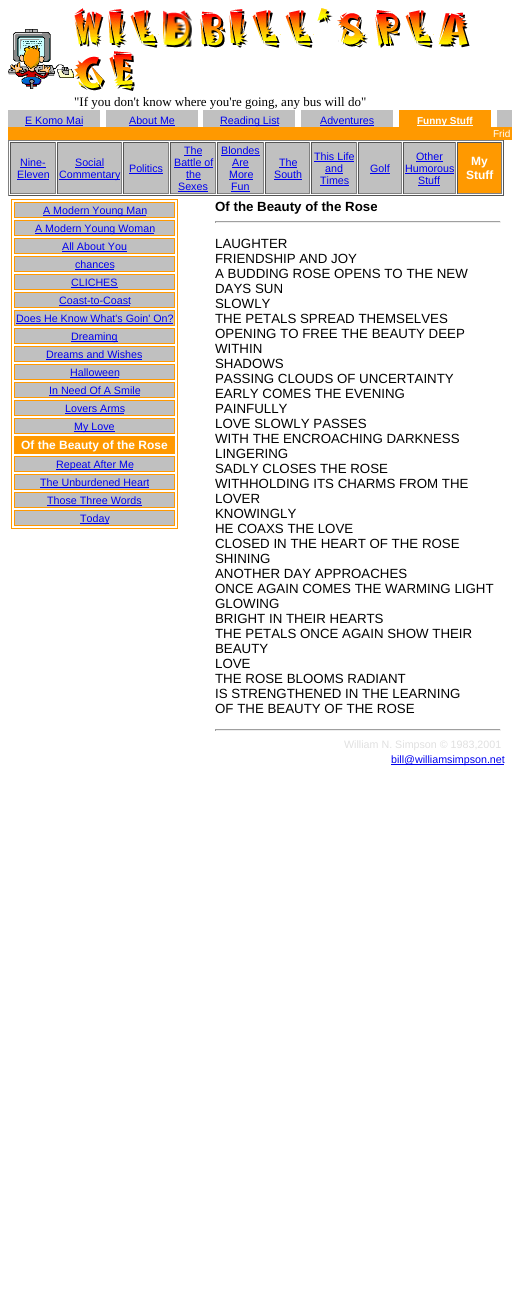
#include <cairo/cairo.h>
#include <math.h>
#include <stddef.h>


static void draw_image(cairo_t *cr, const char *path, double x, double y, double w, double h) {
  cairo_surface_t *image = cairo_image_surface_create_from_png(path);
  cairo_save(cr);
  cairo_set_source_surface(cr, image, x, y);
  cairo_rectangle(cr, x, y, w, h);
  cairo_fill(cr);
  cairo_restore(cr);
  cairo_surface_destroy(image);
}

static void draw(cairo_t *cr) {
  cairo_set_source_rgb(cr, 1, 1, 1);
  cairo_paint(cr);
  draw_image(cr, "images/1.png", 8, 29, 66, 60);
  draw_image(cr, "images/2.png", 74, 8, 30, 40);
  draw_image(cr, "images/3.png", 108, 9, 19, 39);
  draw_image(cr, "images/4.png", 130, 10, 29, 38);
  draw_image(cr, "images/5.png", 163, 10, 29, 38);
  draw_image(cr, "images/6.png", 200, 11, 26, 37);
  draw_image(cr, "images/3.png", 229, 9, 19, 39);
  draw_image(cr, "images/4.png", 252, 10, 29, 38);
  draw_image(cr, "images/4.png", 285, 10, 29, 38);
  draw_image(cr, "images/7.png", 317, 8, 16, 16);
  draw_image(cr, "images/8.png", 337, 12, 31, 36);
  draw_image(cr, "images/9.png", 375, 10, 26, 38);
  draw_image(cr, "images/4.png", 405, 10, 29, 38);
  draw_image(cr, "images/10.png", 438, 12, 32, 36);
  draw_image(cr, "images/11.png", 74, 56, 31, 35);
  draw_image(cr, "images/12.png", 109, 51, 26, 40);
  cairo_set_source_rgb(cr, 192 / 255.0, 192 / 255.0, 192 / 255.0);
  cairo_rectangle(cr, 8, 110, 92, 17);
  cairo_fill(cr);
  cairo_set_source_rgb(cr, 0, 0, 238 / 255.0);
  cairo_rectangle(cr, 25, 125, 58, 1);
  cairo_fill(cr);
  cairo_set_source_rgb(cr, 192 / 255.0, 192 / 255.0, 192 / 255.0);
  cairo_rectangle(cr, 106, 110, 92, 17);
  cairo_fill(cr);
  cairo_set_source_rgb(cr, 0, 0, 238 / 255.0);
  cairo_rectangle(cr, 129, 125, 46, 1);
  cairo_fill(cr);
  cairo_set_source_rgb(cr, 192 / 255.0, 192 / 255.0, 192 / 255.0);
  cairo_rectangle(cr, 203, 110, 92, 17);
  cairo_fill(cr);
  cairo_set_source_rgb(cr, 0, 0, 238 / 255.0);
  cairo_rectangle(cr, 220, 125, 59, 1);
  cairo_fill(cr);
  cairo_set_source_rgb(cr, 192 / 255.0, 192 / 255.0, 192 / 255.0);
  cairo_rectangle(cr, 301, 110, 92, 17);
  cairo_fill(cr);
  cairo_set_source_rgb(cr, 0, 0, 238 / 255.0);
  cairo_rectangle(cr, 320, 125, 54, 1);
  cairo_fill(cr);
  cairo_set_source_rgb(cr, 1, 153 / 255.0, 0);
  cairo_rectangle(cr, 399, 110, 92, 17);
  cairo_fill(cr);
  cairo_set_source_rgb(cr, 1, 1, 1);
  cairo_rectangle(cr, 417, 125, 56, 1);
  cairo_fill(cr);
  cairo_set_source_rgb(cr, 192 / 255.0, 192 / 255.0, 192 / 255.0);
  cairo_rectangle(cr, 497, 110, 15, 17);
  cairo_fill(cr);
  cairo_set_source_rgb(cr, 1, 153 / 255.0, 0);
  cairo_rectangle(cr, 8, 127, 504, 13);
  cairo_fill(cr);
  cairo_set_source_rgb(cr, 128 / 255.0, 128 / 255.0, 128 / 255.0);
  cairo_rectangle(cr, 8, 140, 496, 1);
  cairo_fill(cr);
  cairo_set_source_rgb(cr, 85 / 255.0, 85 / 255.0, 85 / 255.0);
  cairo_rectangle(cr, 503, 140, 1, 56);
  cairo_fill(cr);
  cairo_rectangle(cr, 8, 195, 496, 1);
  cairo_fill(cr);
  cairo_set_source_rgb(cr, 128 / 255.0, 128 / 255.0, 128 / 255.0);
  cairo_rectangle(cr, 8, 140, 1, 56);
  cairo_fill(cr);
  cairo_set_source_rgb(cr, 192 / 255.0, 192 / 255.0, 192 / 255.0);
  cairo_rectangle(cr, 11, 143, 44, 50);
  cairo_fill(cr);
  cairo_set_source_rgb(cr, 85 / 255.0, 85 / 255.0, 85 / 255.0);
  cairo_rectangle(cr, 10, 142, 46, 1);
  cairo_fill(cr);
  cairo_set_source_rgb(cr, 128 / 255.0, 128 / 255.0, 128 / 255.0);
  cairo_rectangle(cr, 55, 142, 1, 52);
  cairo_fill(cr);
  cairo_rectangle(cr, 10, 193, 46, 1);
  cairo_fill(cr);
  cairo_set_source_rgb(cr, 85 / 255.0, 85 / 255.0, 85 / 255.0);
  cairo_rectangle(cr, 10, 142, 1, 52);
  cairo_fill(cr);
  cairo_set_source_rgb(cr, 0, 0, 238 / 255.0);
  cairo_rectangle(cr, 20, 167, 26, 1);
  cairo_fill(cr);
  cairo_rectangle(cr, 17, 179, 32, 1);
  cairo_fill(cr);
  cairo_set_source_rgb(cr, 192 / 255.0, 192 / 255.0, 192 / 255.0);
  cairo_rectangle(cr, 58, 143, 63, 50);
  cairo_fill(cr);
  cairo_set_source_rgb(cr, 85 / 255.0, 85 / 255.0, 85 / 255.0);
  cairo_rectangle(cr, 57, 142, 65, 1);
  cairo_fill(cr);
  cairo_set_source_rgb(cr, 128 / 255.0, 128 / 255.0, 128 / 255.0);
  cairo_rectangle(cr, 121, 142, 1, 52);
  cairo_fill(cr);
  cairo_rectangle(cr, 57, 193, 65, 1);
  cairo_fill(cr);
  cairo_set_source_rgb(cr, 85 / 255.0, 85 / 255.0, 85 / 255.0);
  cairo_rectangle(cr, 57, 142, 1, 52);
  cairo_fill(cr);
  cairo_set_source_rgb(cr, 0, 0, 238 / 255.0);
  cairo_rectangle(cr, 75, 167, 29, 1);
  cairo_fill(cr);
  cairo_rectangle(cr, 59, 179, 61, 1);
  cairo_fill(cr);
  cairo_set_source_rgb(cr, 192 / 255.0, 192 / 255.0, 192 / 255.0);
  cairo_rectangle(cr, 124, 143, 44, 50);
  cairo_fill(cr);
  cairo_set_source_rgb(cr, 85 / 255.0, 85 / 255.0, 85 / 255.0);
  cairo_rectangle(cr, 123, 142, 46, 1);
  cairo_fill(cr);
  cairo_set_source_rgb(cr, 128 / 255.0, 128 / 255.0, 128 / 255.0);
  cairo_rectangle(cr, 168, 142, 1, 52);
  cairo_fill(cr);
  cairo_rectangle(cr, 123, 193, 46, 1);
  cairo_fill(cr);
  cairo_set_source_rgb(cr, 85 / 255.0, 85 / 255.0, 85 / 255.0);
  cairo_rectangle(cr, 123, 142, 1, 52);
  cairo_fill(cr);
  cairo_set_source_rgb(cr, 0, 0, 238 / 255.0);
  cairo_rectangle(cr, 129, 173, 34, 1);
  cairo_fill(cr);
  cairo_set_source_rgb(cr, 192 / 255.0, 192 / 255.0, 192 / 255.0);
  cairo_rectangle(cr, 171, 143, 44, 50);
  cairo_fill(cr);
  cairo_set_source_rgb(cr, 85 / 255.0, 85 / 255.0, 85 / 255.0);
  cairo_rectangle(cr, 170, 142, 46, 1);
  cairo_fill(cr);
  cairo_set_source_rgb(cr, 128 / 255.0, 128 / 255.0, 128 / 255.0);
  cairo_rectangle(cr, 215, 142, 1, 52);
  cairo_fill(cr);
  cairo_rectangle(cr, 170, 193, 46, 1);
  cairo_fill(cr);
  cairo_set_source_rgb(cr, 85 / 255.0, 85 / 255.0, 85 / 255.0);
  cairo_rectangle(cr, 170, 142, 1, 52);
  cairo_fill(cr);
  cairo_set_source_rgb(cr, 0, 0, 238 / 255.0);
  cairo_rectangle(cr, 184, 155, 18, 1);
  cairo_fill(cr);
  cairo_rectangle(cr, 174, 167, 39, 1);
  cairo_fill(cr);
  cairo_rectangle(cr, 186, 179, 15, 1);
  cairo_fill(cr);
  cairo_rectangle(cr, 178, 191, 30, 1);
  cairo_fill(cr);
  cairo_set_source_rgb(cr, 192 / 255.0, 192 / 255.0, 192 / 255.0);
  cairo_rectangle(cr, 218, 143, 45, 50);
  cairo_fill(cr);
  cairo_set_source_rgb(cr, 85 / 255.0, 85 / 255.0, 85 / 255.0);
  cairo_rectangle(cr, 217, 142, 47, 1);
  cairo_fill(cr);
  cairo_set_source_rgb(cr, 128 / 255.0, 128 / 255.0, 128 / 255.0);
  cairo_rectangle(cr, 263, 142, 1, 52);
  cairo_fill(cr);
  cairo_rectangle(cr, 217, 193, 47, 1);
  cairo_fill(cr);
  cairo_set_source_rgb(cr, 85 / 255.0, 85 / 255.0, 85 / 255.0);
  cairo_rectangle(cr, 217, 142, 1, 52);
  cairo_fill(cr);
  cairo_set_source_rgb(cr, 0, 0, 238 / 255.0);
  cairo_rectangle(cr, 221, 155, 39, 1);
  cairo_fill(cr);
  cairo_rectangle(cr, 232, 167, 17, 1);
  cairo_fill(cr);
  cairo_rectangle(cr, 229, 179, 24, 1);
  cairo_fill(cr);
  cairo_rectangle(cr, 231, 191, 19, 1);
  cairo_fill(cr);
  cairo_set_source_rgb(cr, 192 / 255.0, 192 / 255.0, 192 / 255.0);
  cairo_rectangle(cr, 266, 143, 43, 50);
  cairo_fill(cr);
  cairo_set_source_rgb(cr, 85 / 255.0, 85 / 255.0, 85 / 255.0);
  cairo_rectangle(cr, 265, 142, 45, 1);
  cairo_fill(cr);
  cairo_set_source_rgb(cr, 128 / 255.0, 128 / 255.0, 128 / 255.0);
  cairo_rectangle(cr, 309, 142, 1, 52);
  cairo_fill(cr);
  cairo_rectangle(cr, 265, 193, 45, 1);
  cairo_fill(cr);
  cairo_set_source_rgb(cr, 85 / 255.0, 85 / 255.0, 85 / 255.0);
  cairo_rectangle(cr, 265, 142, 1, 52);
  cairo_fill(cr);
  cairo_set_source_rgb(cr, 0, 0, 238 / 255.0);
  cairo_rectangle(cr, 279, 167, 18, 1);
  cairo_fill(cr);
  cairo_rectangle(cr, 274, 179, 28, 1);
  cairo_fill(cr);
  cairo_set_source_rgb(cr, 192 / 255.0, 192 / 255.0, 192 / 255.0);
  cairo_rectangle(cr, 312, 143, 44, 50);
  cairo_fill(cr);
  cairo_set_source_rgb(cr, 85 / 255.0, 85 / 255.0, 85 / 255.0);
  cairo_rectangle(cr, 311, 142, 46, 1);
  cairo_fill(cr);
  cairo_set_source_rgb(cr, 128 / 255.0, 128 / 255.0, 128 / 255.0);
  cairo_rectangle(cr, 356, 142, 1, 52);
  cairo_fill(cr);
  cairo_rectangle(cr, 311, 193, 46, 1);
  cairo_fill(cr);
  cairo_set_source_rgb(cr, 85 / 255.0, 85 / 255.0, 85 / 255.0);
  cairo_rectangle(cr, 311, 142, 1, 52);
  cairo_fill(cr);
  cairo_set_source_rgb(cr, 0, 0, 238 / 255.0);
  cairo_rectangle(cr, 314, 161, 40, 1);
  cairo_fill(cr);
  cairo_rectangle(cr, 325, 173, 18, 1);
  cairo_fill(cr);
  cairo_rectangle(cr, 320, 185, 29, 1);
  cairo_fill(cr);
  cairo_set_source_rgb(cr, 192 / 255.0, 192 / 255.0, 192 / 255.0);
  cairo_rectangle(cr, 359, 143, 42, 50);
  cairo_fill(cr);
  cairo_set_source_rgb(cr, 85 / 255.0, 85 / 255.0, 85 / 255.0);
  cairo_rectangle(cr, 358, 142, 44, 1);
  cairo_fill(cr);
  cairo_set_source_rgb(cr, 128 / 255.0, 128 / 255.0, 128 / 255.0);
  cairo_rectangle(cr, 401, 142, 1, 52);
  cairo_fill(cr);
  cairo_rectangle(cr, 358, 193, 44, 1);
  cairo_fill(cr);
  cairo_set_source_rgb(cr, 85 / 255.0, 85 / 255.0, 85 / 255.0);
  cairo_rectangle(cr, 358, 142, 1, 52);
  cairo_fill(cr);
  cairo_set_source_rgb(cr, 0, 0, 238 / 255.0);
  cairo_rectangle(cr, 370, 173, 20, 1);
  cairo_fill(cr);
  cairo_set_source_rgb(cr, 192 / 255.0, 192 / 255.0, 192 / 255.0);
  cairo_rectangle(cr, 404, 143, 51, 50);
  cairo_fill(cr);
  cairo_set_source_rgb(cr, 85 / 255.0, 85 / 255.0, 85 / 255.0);
  cairo_rectangle(cr, 403, 142, 53, 1);
  cairo_fill(cr);
  cairo_set_source_rgb(cr, 128 / 255.0, 128 / 255.0, 128 / 255.0);
  cairo_rectangle(cr, 455, 142, 1, 52);
  cairo_fill(cr);
  cairo_rectangle(cr, 403, 193, 53, 1);
  cairo_fill(cr);
  cairo_set_source_rgb(cr, 85 / 255.0, 85 / 255.0, 85 / 255.0);
  cairo_rectangle(cr, 403, 142, 1, 52);
  cairo_fill(cr);
  cairo_set_source_rgb(cr, 0, 0, 238 / 255.0);
  cairo_rectangle(cr, 416, 161, 27, 1);
  cairo_fill(cr);
  cairo_rectangle(cr, 405, 173, 49, 1);
  cairo_fill(cr);
  cairo_rectangle(cr, 418, 185, 22, 1);
  cairo_fill(cr);
  cairo_set_source_rgb(cr, 1, 153 / 255.0, 0);
  cairo_rectangle(cr, 458, 143, 43, 50);
  cairo_fill(cr);
  cairo_set_source_rgb(cr, 85 / 255.0, 85 / 255.0, 85 / 255.0);
  cairo_rectangle(cr, 457, 142, 45, 1);
  cairo_fill(cr);
  cairo_set_source_rgb(cr, 128 / 255.0, 128 / 255.0, 128 / 255.0);
  cairo_rectangle(cr, 501, 142, 1, 52);
  cairo_fill(cr);
  cairo_rectangle(cr, 457, 193, 45, 1);
  cairo_fill(cr);
  cairo_set_source_rgb(cr, 85 / 255.0, 85 / 255.0, 85 / 255.0);
  cairo_rectangle(cr, 457, 142, 1, 52);
  cairo_fill(cr);
  cairo_rectangle(cr, 11.5, 199.5, 166, 329);
  cairo_set_source_rgb(cr, 1, 153 / 255.0, 0);
  cairo_set_line_width(cr, 1);
  cairo_stroke(cr);
  cairo_set_source_rgb(cr, 192 / 255.0, 192 / 255.0, 192 / 255.0);
  cairo_rectangle(cr, 14.5, 202.5, 160, 15);
  cairo_fill_preserve(cr);
  cairo_set_source_rgb(cr, 1, 153 / 255.0, 0);
  cairo_stroke(cr);
  cairo_set_source_rgb(cr, 0, 0, 238 / 255.0);
  cairo_rectangle(cr, 43, 215, 103, 1);
  cairo_fill(cr);
  cairo_set_source_rgb(cr, 192 / 255.0, 192 / 255.0, 192 / 255.0);
  cairo_rectangle(cr, 14.5, 220.5, 160, 15);
  cairo_fill_preserve(cr);
  cairo_set_source_rgb(cr, 1, 153 / 255.0, 0);
  cairo_stroke(cr);
  cairo_set_source_rgb(cr, 0, 0, 238 / 255.0);
  cairo_rectangle(cr, 35, 233, 119, 1);
  cairo_fill(cr);
  cairo_set_source_rgb(cr, 192 / 255.0, 192 / 255.0, 192 / 255.0);
  cairo_rectangle(cr, 14.5, 238.5, 160, 15);
  cairo_fill_preserve(cr);
  cairo_set_source_rgb(cr, 1, 153 / 255.0, 0);
  cairo_stroke(cr);
  cairo_set_source_rgb(cr, 0, 0, 238 / 255.0);
  cairo_rectangle(cr, 62, 251, 65, 1);
  cairo_fill(cr);
  cairo_set_source_rgb(cr, 192 / 255.0, 192 / 255.0, 192 / 255.0);
  cairo_rectangle(cr, 14.5, 256.5, 160, 15);
  cairo_fill_preserve(cr);
  cairo_set_source_rgb(cr, 1, 153 / 255.0, 0);
  cairo_stroke(cr);
  cairo_set_source_rgb(cr, 0, 0, 238 / 255.0);
  cairo_rectangle(cr, 75, 269, 39, 1);
  cairo_fill(cr);
  cairo_set_source_rgb(cr, 192 / 255.0, 192 / 255.0, 192 / 255.0);
  cairo_rectangle(cr, 14.5, 274.5, 160, 15);
  cairo_fill_preserve(cr);
  cairo_set_source_rgb(cr, 1, 153 / 255.0, 0);
  cairo_stroke(cr);
  cairo_set_source_rgb(cr, 0, 0, 238 / 255.0);
  cairo_rectangle(cr, 71, 287, 47, 1);
  cairo_fill(cr);
  cairo_set_source_rgb(cr, 192 / 255.0, 192 / 255.0, 192 / 255.0);
  cairo_rectangle(cr, 14.5, 292.5, 160, 15);
  cairo_fill_preserve(cr);
  cairo_set_source_rgb(cr, 1, 153 / 255.0, 0);
  cairo_stroke(cr);
  cairo_set_source_rgb(cr, 0, 0, 238 / 255.0);
  cairo_rectangle(cr, 59, 305, 71, 1);
  cairo_fill(cr);
  cairo_set_source_rgb(cr, 192 / 255.0, 192 / 255.0, 192 / 255.0);
  cairo_rectangle(cr, 14.5, 310.5, 160, 15);
  cairo_fill_preserve(cr);
  cairo_set_source_rgb(cr, 1, 153 / 255.0, 0);
  cairo_stroke(cr);
  cairo_set_source_rgb(cr, 0, 0, 238 / 255.0);
  cairo_rectangle(cr, 16, 323, 157, 1);
  cairo_fill(cr);
  cairo_set_source_rgb(cr, 192 / 255.0, 192 / 255.0, 192 / 255.0);
  cairo_rectangle(cr, 14.5, 328.5, 160, 15);
  cairo_fill_preserve(cr);
  cairo_set_source_rgb(cr, 1, 153 / 255.0, 0);
  cairo_stroke(cr);
  cairo_set_source_rgb(cr, 0, 0, 238 / 255.0);
  cairo_rectangle(cr, 71, 341, 47, 1);
  cairo_fill(cr);
  cairo_set_source_rgb(cr, 192 / 255.0, 192 / 255.0, 192 / 255.0);
  cairo_rectangle(cr, 14.5, 346.5, 160, 15);
  cairo_fill_preserve(cr);
  cairo_set_source_rgb(cr, 1, 153 / 255.0, 0);
  cairo_stroke(cr);
  cairo_set_source_rgb(cr, 0, 0, 238 / 255.0);
  cairo_rectangle(cr, 46, 359, 96, 1);
  cairo_fill(cr);
  cairo_set_source_rgb(cr, 192 / 255.0, 192 / 255.0, 192 / 255.0);
  cairo_rectangle(cr, 14.5, 364.5, 160, 15);
  cairo_fill_preserve(cr);
  cairo_set_source_rgb(cr, 1, 153 / 255.0, 0);
  cairo_stroke(cr);
  cairo_set_source_rgb(cr, 0, 0, 238 / 255.0);
  cairo_rectangle(cr, 70, 377, 49, 1);
  cairo_fill(cr);
  cairo_set_source_rgb(cr, 192 / 255.0, 192 / 255.0, 192 / 255.0);
  cairo_rectangle(cr, 14.5, 382.5, 160, 15);
  cairo_fill_preserve(cr);
  cairo_set_source_rgb(cr, 1, 153 / 255.0, 0);
  cairo_stroke(cr);
  cairo_set_source_rgb(cr, 0, 0, 238 / 255.0);
  cairo_rectangle(cr, 49, 395, 91, 1);
  cairo_fill(cr);
  cairo_set_source_rgb(cr, 192 / 255.0, 192 / 255.0, 192 / 255.0);
  cairo_rectangle(cr, 14.5, 400.5, 160, 15);
  cairo_fill_preserve(cr);
  cairo_set_source_rgb(cr, 1, 153 / 255.0, 0);
  cairo_stroke(cr);
  cairo_set_source_rgb(cr, 0, 0, 238 / 255.0);
  cairo_rectangle(cr, 65, 413, 59, 1);
  cairo_fill(cr);
  cairo_set_source_rgb(cr, 192 / 255.0, 192 / 255.0, 192 / 255.0);
  cairo_rectangle(cr, 14.5, 418.5, 160, 15);
  cairo_fill_preserve(cr);
  cairo_set_source_rgb(cr, 1, 153 / 255.0, 0);
  cairo_stroke(cr);
  cairo_set_source_rgb(cr, 0, 0, 238 / 255.0);
  cairo_rectangle(cr, 74, 431, 41, 1);
  cairo_fill(cr);
  cairo_set_source_rgb(cr, 1, 153 / 255.0, 0);
  cairo_rectangle(cr, 14, 436, 161, 18);
  cairo_fill(cr);
  cairo_set_source_rgb(cr, 192 / 255.0, 192 / 255.0, 192 / 255.0);
  cairo_rectangle(cr, 14.5, 456.5, 160, 15);
  cairo_fill_preserve(cr);
  cairo_set_source_rgb(cr, 1, 153 / 255.0, 0);
  cairo_stroke(cr);
  cairo_set_source_rgb(cr, 0, 0, 238 / 255.0);
  cairo_rectangle(cr, 56, 469, 77, 1);
  cairo_fill(cr);
  cairo_set_source_rgb(cr, 192 / 255.0, 192 / 255.0, 192 / 255.0);
  cairo_rectangle(cr, 14.5, 474.5, 160, 15);
  cairo_fill_preserve(cr);
  cairo_set_source_rgb(cr, 1, 153 / 255.0, 0);
  cairo_stroke(cr);
  cairo_set_source_rgb(cr, 0, 0, 238 / 255.0);
  cairo_rectangle(cr, 40, 487, 109, 1);
  cairo_fill(cr);
  cairo_set_source_rgb(cr, 192 / 255.0, 192 / 255.0, 192 / 255.0);
  cairo_rectangle(cr, 14.5, 492.5, 160, 15);
  cairo_fill_preserve(cr);
  cairo_set_source_rgb(cr, 1, 153 / 255.0, 0);
  cairo_stroke(cr);
  cairo_set_source_rgb(cr, 0, 0, 238 / 255.0);
  cairo_rectangle(cr, 47, 505, 95, 1);
  cairo_fill(cr);
  cairo_set_source_rgb(cr, 192 / 255.0, 192 / 255.0, 192 / 255.0);
  cairo_rectangle(cr, 14.5, 510.5, 160, 15);
  cairo_fill_preserve(cr);
  cairo_set_source_rgb(cr, 1, 153 / 255.0, 0);
  cairo_stroke(cr);
  cairo_set_source_rgb(cr, 0, 0, 238 / 255.0);
  cairo_rectangle(cr, 80, 523, 29, 1);
  cairo_fill(cr);
  cairo_set_source_rgb(cr, 159 / 255.0, 159 / 255.0, 159 / 255.0);
  cairo_rectangle(cr, 215, 221, 286, 1);
  cairo_fill(cr);
  cairo_set_source_rgb(cr, 238 / 255.0, 238 / 255.0, 238 / 255.0);
  cairo_rectangle(cr, 500, 221, 1, 2);
  cairo_fill(cr);
  cairo_rectangle(cr, 215, 222, 286, 1);
  cairo_fill(cr);
  cairo_set_source_rgb(cr, 159 / 255.0, 159 / 255.0, 159 / 255.0);
  cairo_rectangle(cr, 215, 221, 1, 2);
  cairo_fill(cr);
  cairo_rectangle(cr, 215, 729, 286, 1);
  cairo_fill(cr);
  cairo_set_source_rgb(cr, 238 / 255.0, 238 / 255.0, 238 / 255.0);
  cairo_rectangle(cr, 500, 729, 1, 2);
  cairo_fill(cr);
  cairo_rectangle(cr, 215, 730, 286, 1);
  cairo_fill(cr);
  cairo_set_source_rgb(cr, 159 / 255.0, 159 / 255.0, 159 / 255.0);
  cairo_rectangle(cr, 215, 729, 1, 2);
  cairo_fill(cr);
  cairo_set_source_rgb(cr, 0, 0, 238 / 255.0);
  cairo_rectangle(cr, 391, 764, 113, 1);
  cairo_fill(cr);
  cairo_select_font_face(cr, "Liberation Serif", CAIRO_FONT_SLANT_NORMAL, CAIRO_FONT_WEIGHT_NORMAL);
  cairo_set_font_size(cr, 13);
  cairo_set_source_rgb(cr, 0, 0, 0);
  cairo_move_to(cr, 74, 106);
  cairo_show_text(cr, "\"If you don't know where you're going, any bus will do\"");
  cairo_select_font_face(cr, "Liberation Sans", CAIRO_FONT_SLANT_NORMAL, CAIRO_FONT_WEIGHT_NORMAL);
  cairo_set_font_size(cr, 10.7);
  cairo_set_source_rgb(cr, 0, 0, 238 / 255.0);
  cairo_move_to(cr, 25, 124);
  cairo_show_text(cr, "E Komo Mai");
  cairo_move_to(cr, 129, 124);
  cairo_show_text(cr, "About Me");
  cairo_move_to(cr, 220, 124);
  cairo_show_text(cr, "Reading List");
  cairo_move_to(cr, 320, 124);
  cairo_show_text(cr, "Adventures");
  cairo_select_font_face(cr, "Liberation Sans", CAIRO_FONT_SLANT_NORMAL, CAIRO_FONT_WEIGHT_BOLD);
  cairo_set_font_size(cr, 10);
  cairo_set_source_rgb(cr, 1, 1, 1);
  cairo_move_to(cr, 417, 124);
  cairo_show_text(cr, "Funny Stuff");
  cairo_select_font_face(cr, "Liberation Sans", CAIRO_FONT_SLANT_NORMAL, CAIRO_FONT_WEIGHT_NORMAL);
  cairo_move_to(cr, 493, 137);
  cairo_show_text(cr, "Frid");
  cairo_set_font_size(cr, 10.7);
  cairo_set_source_rgb(cr, 0, 0, 238 / 255.0);
  cairo_move_to(cr, 20, 166);
  cairo_show_text(cr, "Nine-");
  cairo_move_to(cr, 17, 178);
  cairo_show_text(cr, "Eleven");
  cairo_move_to(cr, 75, 166);
  cairo_show_text(cr, "Social");
  cairo_move_to(cr, 59, 178);
  cairo_show_text(cr, "Commentary");
  cairo_move_to(cr, 129, 172);
  cairo_show_text(cr, "Politics");
  cairo_move_to(cr, 184, 154);
  cairo_show_text(cr, "The");
  cairo_move_to(cr, 174, 166);
  cairo_show_text(cr, "Battle of");
  cairo_move_to(cr, 186, 178);
  cairo_show_text(cr, "the");
  cairo_move_to(cr, 178, 190);
  cairo_show_text(cr, "Sexes");
  cairo_move_to(cr, 221, 154);
  cairo_show_text(cr, "Blondes");
  cairo_move_to(cr, 232, 166);
  cairo_show_text(cr, "Are");
  cairo_move_to(cr, 229, 178);
  cairo_show_text(cr, "More");
  cairo_move_to(cr, 231, 190);
  cairo_show_text(cr, "Fun");
  cairo_move_to(cr, 279, 166);
  cairo_show_text(cr, "The");
  cairo_move_to(cr, 274, 178);
  cairo_show_text(cr, "South");
  cairo_move_to(cr, 314, 160);
  cairo_show_text(cr, "This Life");
  cairo_move_to(cr, 325, 172);
  cairo_show_text(cr, "and");
  cairo_move_to(cr, 320, 184);
  cairo_show_text(cr, "Times");
  cairo_move_to(cr, 370, 172);
  cairo_show_text(cr, "Golf");
  cairo_move_to(cr, 416, 160);
  cairo_show_text(cr, "Other");
  cairo_move_to(cr, 405, 172);
  cairo_show_text(cr, "Humorous");
  cairo_move_to(cr, 418, 184);
  cairo_show_text(cr, "Stuff");
  cairo_select_font_face(cr, "Liberation Sans", CAIRO_FONT_SLANT_NORMAL, CAIRO_FONT_WEIGHT_BOLD);
  cairo_set_font_size(cr, 12);
  cairo_set_source_rgb(cr, 1, 1, 1);
  cairo_move_to(cr, 471, 165);
  cairo_show_text(cr, "My");
  cairo_move_to(cr, 466, 179);
  cairo_show_text(cr, "Stuff");
  cairo_select_font_face(cr, "Liberation Sans", CAIRO_FONT_SLANT_NORMAL, CAIRO_FONT_WEIGHT_NORMAL);
  cairo_set_font_size(cr, 10.7);
  cairo_set_source_rgb(cr, 0, 0, 238 / 255.0);
  cairo_move_to(cr, 43, 214);
  cairo_show_text(cr, "A Modern Young Man");
  cairo_move_to(cr, 35, 232);
  cairo_show_text(cr, "A Modern Young Woman");
  cairo_move_to(cr, 62, 250);
  cairo_show_text(cr, "All About You");
  cairo_move_to(cr, 75, 268);
  cairo_show_text(cr, "chances");
  cairo_move_to(cr, 71, 286);
  cairo_show_text(cr, "CLICHES");
  cairo_move_to(cr, 59, 304);
  cairo_show_text(cr, "Coast-to-Coast");
  cairo_move_to(cr, 16, 322);
  cairo_show_text(cr, "Does He Know What's Goin' On?");
  cairo_move_to(cr, 71, 340);
  cairo_show_text(cr, "Dreaming");
  cairo_move_to(cr, 46, 358);
  cairo_show_text(cr, "Dreams and Wishes");
  cairo_move_to(cr, 70, 376);
  cairo_show_text(cr, "Halloween");
  cairo_move_to(cr, 49, 394);
  cairo_show_text(cr, "In Need Of A Smile");
  cairo_move_to(cr, 65, 412);
  cairo_show_text(cr, "Lovers Arms");
  cairo_move_to(cr, 74, 430);
  cairo_show_text(cr, "My Love");
  cairo_select_font_face(cr, "Liberation Sans", CAIRO_FONT_SLANT_NORMAL, CAIRO_FONT_WEIGHT_BOLD);
  cairo_set_font_size(cr, 12);
  cairo_set_source_rgb(cr, 1, 1, 1);
  cairo_move_to(cr, 21, 449);
  cairo_show_text(cr, "Of the Beauty of the Rose");
  cairo_select_font_face(cr, "Liberation Sans", CAIRO_FONT_SLANT_NORMAL, CAIRO_FONT_WEIGHT_NORMAL);
  cairo_set_font_size(cr, 10.7);
  cairo_set_source_rgb(cr, 0, 0, 238 / 255.0);
  cairo_move_to(cr, 56, 468);
  cairo_show_text(cr, "Repeat After Me");
  cairo_move_to(cr, 40, 486);
  cairo_show_text(cr, "The Unburdened Heart");
  cairo_move_to(cr, 47, 504);
  cairo_show_text(cr, "Those Three Words");
  cairo_move_to(cr, 80, 522);
  cairo_show_text(cr, "Today");
  cairo_select_font_face(cr, "Liberation Sans", CAIRO_FONT_SLANT_NORMAL, CAIRO_FONT_WEIGHT_BOLD);
  cairo_set_font_size(cr, 13.3);
  cairo_set_source_rgb(cr, 0, 0, 0);
  cairo_move_to(cr, 215, 211);
  cairo_show_text(cr, "Of the Beauty of the Rose");
  cairo_select_font_face(cr, "Liberation Sans", CAIRO_FONT_SLANT_NORMAL, CAIRO_FONT_WEIGHT_NORMAL);
  cairo_move_to(cr, 215, 248);
  cairo_show_text(cr, "LAUGHTER");
  cairo_move_to(cr, 215, 263);
  cairo_show_text(cr, "FRIENDSHIP AND JOY");
  cairo_move_to(cr, 215, 278);
  cairo_show_text(cr, "A BUDDING ROSE OPENS TO THE NEW");
  cairo_move_to(cr, 215, 293);
  cairo_show_text(cr, "DAYS SUN");
  cairo_move_to(cr, 215, 308);
  cairo_show_text(cr, "SLOWLY");
  cairo_move_to(cr, 215, 323);
  cairo_show_text(cr, "THE PETALS SPREAD THEMSELVES");
  cairo_move_to(cr, 215, 338);
  cairo_show_text(cr, "OPENING TO FREE THE BEAUTY DEEP");
  cairo_move_to(cr, 215, 353);
  cairo_show_text(cr, "WITHIN");
  cairo_move_to(cr, 215, 368);
  cairo_show_text(cr, "SHADOWS");
  cairo_move_to(cr, 215, 383);
  cairo_show_text(cr, "PASSING CLOUDS OF UNCERTAINTY");
  cairo_move_to(cr, 215, 398);
  cairo_show_text(cr, "EARLY COMES THE EVENING");
  cairo_move_to(cr, 215, 413);
  cairo_show_text(cr, "PAINFULLY");
  cairo_move_to(cr, 215, 428);
  cairo_show_text(cr, "LOVE SLOWLY PASSES");
  cairo_move_to(cr, 215, 443);
  cairo_show_text(cr, "WITH THE ENCROACHING DARKNESS");
  cairo_move_to(cr, 215, 458);
  cairo_show_text(cr, "LINGERING");
  cairo_move_to(cr, 215, 473);
  cairo_show_text(cr, "SADLY CLOSES THE ROSE");
  cairo_move_to(cr, 215, 488);
  cairo_show_text(cr, "WITHHOLDING ITS CHARMS FROM THE");
  cairo_move_to(cr, 215, 503);
  cairo_show_text(cr, "LOVER");
  cairo_move_to(cr, 215, 518);
  cairo_show_text(cr, "KNOWINGLY");
  cairo_move_to(cr, 215, 533);
  cairo_show_text(cr, "HE COAXS THE LOVE");
  cairo_move_to(cr, 215, 548);
  cairo_show_text(cr, "CLOSED IN THE HEART OF THE ROSE");
  cairo_move_to(cr, 215, 563);
  cairo_show_text(cr, "SHINING");
  cairo_move_to(cr, 215, 578);
  cairo_show_text(cr, "ANOTHER DAY APPROACHES");
  cairo_move_to(cr, 215, 593);
  cairo_show_text(cr, "ONCE AGAIN COMES THE WARMING LIGHT");
  cairo_move_to(cr, 215, 608);
  cairo_show_text(cr, "GLOWING");
  cairo_move_to(cr, 215, 623);
  cairo_show_text(cr, "BRIGHT IN THEIR HEARTS");
  cairo_move_to(cr, 215, 638);
  cairo_show_text(cr, "THE PETALS ONCE AGAIN SHOW THEIR");
  cairo_move_to(cr, 215, 653);
  cairo_show_text(cr, "BEAUTY");
  cairo_move_to(cr, 215, 668);
  cairo_show_text(cr, "LOVE");
  cairo_move_to(cr, 215, 683);
  cairo_show_text(cr, "THE ROSE BLOOMS RADIANT");
  cairo_move_to(cr, 215, 698);
  cairo_show_text(cr, "IS STRENGTHENED IN THE LEARNING");
  cairo_move_to(cr, 215, 713);
  cairo_show_text(cr, "OF THE BEAUTY OF THE ROSE");
  cairo_set_font_size(cr, 10.7);
  cairo_set_source_rgb(cr, 224 / 255.0, 224 / 255.0, 224 / 255.0);
  cairo_move_to(cr, 344, 748);
  cairo_show_text(cr, "William N. Simpson © 1983,2001");
  cairo_set_source_rgb(cr, 0, 0, 238 / 255.0);
  cairo_move_to(cr, 391, 763);
  cairo_show_text(cr, "bill@williamsimpson.net");
}

int main(void) {
  cairo_surface_t *surface = cairo_image_surface_create(CAIRO_FORMAT_RGB24, 512, 1311);
  cairo_t *cr = cairo_create(surface);
  cairo_font_options_t *options = cairo_font_options_create();
  cairo_font_options_set_hint_metrics(options, CAIRO_HINT_METRICS_OFF);
  cairo_font_options_set_hint_style(options, CAIRO_HINT_STYLE_NONE);
  cairo_set_font_options(cr, options);
  cairo_set_miter_limit(cr, 4);
  draw(cr);
  cairo_surface_write_to_png(surface, "out.png");
  cairo_font_options_destroy(options);
  cairo_destroy(cr);
  cairo_surface_destroy(surface);
  return 0;
}
